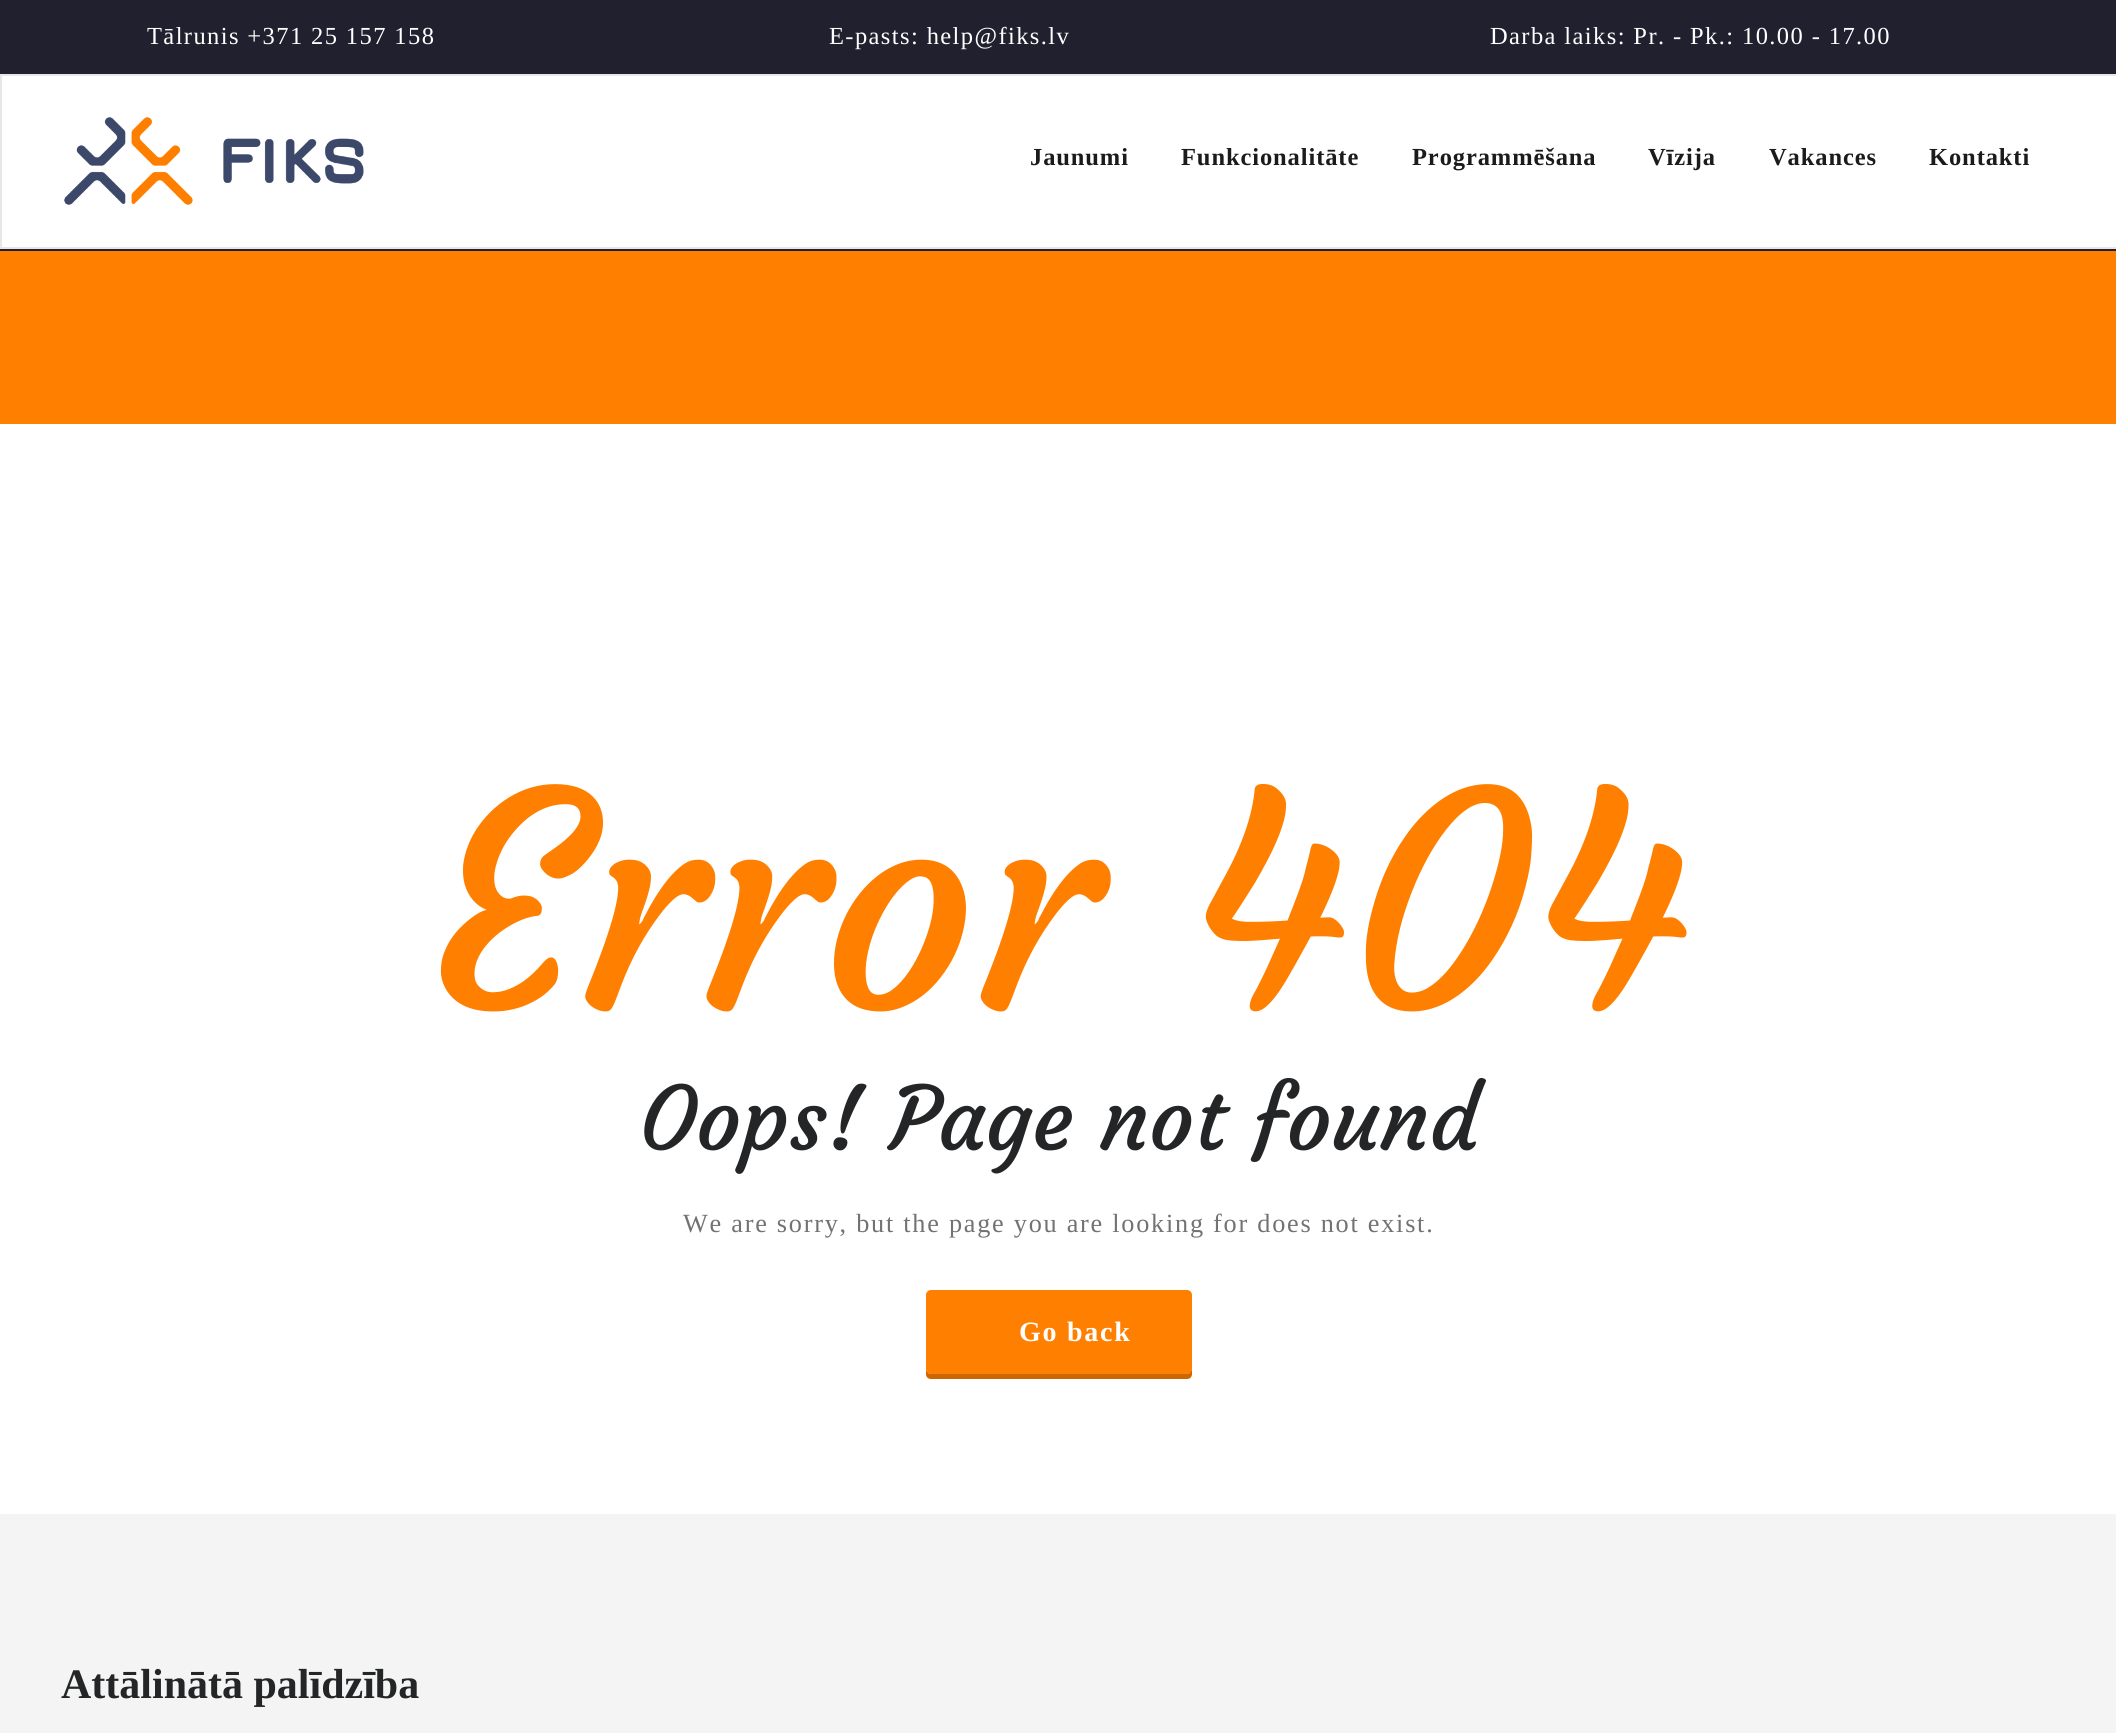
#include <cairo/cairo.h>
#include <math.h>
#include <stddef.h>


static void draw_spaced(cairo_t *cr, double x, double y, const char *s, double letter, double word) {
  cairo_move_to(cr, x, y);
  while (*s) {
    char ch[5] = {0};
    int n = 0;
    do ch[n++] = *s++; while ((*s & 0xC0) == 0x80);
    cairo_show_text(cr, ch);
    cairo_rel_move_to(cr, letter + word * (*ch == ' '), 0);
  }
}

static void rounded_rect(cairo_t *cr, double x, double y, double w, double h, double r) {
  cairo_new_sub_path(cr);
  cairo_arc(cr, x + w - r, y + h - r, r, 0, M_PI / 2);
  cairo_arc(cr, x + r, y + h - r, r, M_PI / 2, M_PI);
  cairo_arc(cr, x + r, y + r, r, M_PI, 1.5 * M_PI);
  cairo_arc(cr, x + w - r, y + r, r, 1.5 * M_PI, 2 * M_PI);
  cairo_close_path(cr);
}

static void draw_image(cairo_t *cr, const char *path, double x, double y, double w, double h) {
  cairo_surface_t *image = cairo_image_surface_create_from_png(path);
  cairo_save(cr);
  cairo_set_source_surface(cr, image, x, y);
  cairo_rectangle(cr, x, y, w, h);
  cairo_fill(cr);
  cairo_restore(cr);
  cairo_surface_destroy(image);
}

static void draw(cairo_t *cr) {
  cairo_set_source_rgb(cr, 1, 1, 1);
  cairo_paint(cr);
  cairo_set_source_rgb(cr, 33 / 255.0, 32 / 255.0, 46 / 255.0);
  cairo_rectangle(cr, 0, 0, 2116, 74);
  cairo_fill(cr);
  cairo_rectangle(cr, 1, 75, 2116, 173);
  cairo_set_source_rgb(cr, 231 / 255.0, 231 / 255.0, 231 / 255.0);
  cairo_stroke(cr);
  draw_image(cr, "images/1.png", 64, 117, 300, 88);
  cairo_set_source_rgb(cr, 1, 127 / 255.0, 0);
  cairo_rectangle(cr, 0, 251, 2116, 173);
  cairo_fill(cr);
  cairo_set_source_rgb(cr, 33 / 255.0, 32 / 255.0, 46 / 255.0);
  cairo_rectangle(cr, 0, 249, 2116, 2);
  cairo_fill(cr);
  cairo_set_source_rgb(cr, 205 / 255.0, 102 / 255.0, 0);
  cairo_new_path(cr);
  cairo_move_to(cr, 926, 1370);
  cairo_line_to(cr, 926, 1374);
  cairo_curve_to(cr, 926, 1377, 928, 1379, 931, 1379);
  cairo_line_to(cr, 1187, 1379);
  cairo_curve_to(cr, 1190, 1379, 1192, 1377, 1192, 1374);
  cairo_line_to(cr, 1192, 1298);
  cairo_line_to(cr, 1192, 1368);
  cairo_curve_to(cr, 1192, 1371, 1189, 1374, 1186, 1374);
  cairo_line_to(cr, 931, 1374);
  cairo_curve_to(cr, 929, 1374, 927, 1372, 926, 1370);
  cairo_close_path(cr);
  cairo_fill(cr);
  cairo_set_source_rgb(cr, 1, 127 / 255.0, 0);
  rounded_rect(cr, 926, 1290, 266, 84, 5);
  cairo_fill(cr);
  cairo_set_source_rgb(cr, 244 / 255.0, 244 / 255.0, 244 / 255.0);
  cairo_rectangle(cr, 0, 1514, 2116, 219);
  cairo_fill(cr);
  cairo_select_font_face(cr, "Liberation Serif", CAIRO_FONT_SLANT_NORMAL, CAIRO_FONT_WEIGHT_NORMAL);
  cairo_set_font_size(cr, 24.5);
  cairo_set_source_rgb(cr, 1, 1, 1);
  draw_spaced(cr, 147, 44, "Tālrunis +371 25 157 158", 1.4, 0);
  draw_spaced(cr, 829, 44, "E-pasts: help@fiks.lv", 1.4, 0);
  draw_spaced(cr, 1490, 44, "Darba laiks: Pr. - Pk.: 10.00 - 17.00", 1.4, 0);
  cairo_select_font_face(cr, "Liberation Serif", CAIRO_FONT_SLANT_NORMAL, CAIRO_FONT_WEIGHT_BOLD);
  cairo_set_source_rgb(cr, 27 / 255.0, 27 / 255.0, 27 / 255.0);
  draw_spaced(cr, 1030, 165, "Jaunumi", 0.9, 0);
  draw_spaced(cr, 1181, 165, "Funkcionalitāte", 0.9, 0);
  draw_spaced(cr, 1412, 165, "Programmēšana", 0.9, 0);
  draw_spaced(cr, 1648, 165, "Vīzija", 0.9, 0);
  draw_spaced(cr, 1769, 165, "Vakances", 0.9, 0);
  draw_spaced(cr, 1929, 165, "Kontakti", 0.9, 0);
  cairo_select_font_face(cr, "Courgette", CAIRO_FONT_SLANT_NORMAL, CAIRO_FONT_WEIGHT_NORMAL);
  cairo_set_font_size(cr, 297.5);
  cairo_set_source_rgb(cr, 1, 127 / 255.0, 0);
  cairo_move_to(cr, 429, 1010);
  cairo_show_text(cr, "Error 404");
  cairo_set_font_size(cr, 87.5);
  cairo_set_source_rgb(cr, 36 / 255.0, 37 / 255.0, 38 / 255.0);
  cairo_move_to(cr, 639, 1150);
  cairo_show_text(cr, "Oops! Page not found");
  cairo_select_font_face(cr, "Liberation Serif", CAIRO_FONT_SLANT_NORMAL, CAIRO_FONT_WEIGHT_NORMAL);
  cairo_set_font_size(cr, 26.25);
  cairo_set_source_rgb(cr, 114 / 255.0, 114 / 255.0, 114 / 255.0);
  draw_spaced(cr, 683, 1232, "We are sorry, but the page you are looking for does not exist.", 1.75, 0);
  cairo_select_font_face(cr, "Liberation Serif", CAIRO_FONT_SLANT_NORMAL, CAIRO_FONT_WEIGHT_BOLD);
  cairo_set_font_size(cr, 28);
  cairo_set_source_rgb(cr, 1, 1, 1);
  draw_spaced(cr, 1019, 1341, "Go back", 1.75, 0);
  cairo_set_font_size(cr, 42);
  cairo_set_source_rgb(cr, 36 / 255.0, 37 / 255.0, 38 / 255.0);
  cairo_move_to(cr, 61, 1698);
  cairo_show_text(cr, "Attālinātā palīdzība");
}

int main(void) {
  cairo_surface_t *surface = cairo_image_surface_create(CAIRO_FORMAT_RGB24, 2116, 1733);
  cairo_t *cr = cairo_create(surface);
  cairo_font_options_t *options = cairo_font_options_create();
  cairo_font_options_set_hint_metrics(options, CAIRO_HINT_METRICS_OFF);
  cairo_font_options_set_hint_style(options, CAIRO_HINT_STYLE_NONE);
  cairo_set_font_options(cr, options);
  cairo_set_miter_limit(cr, 4);
  draw(cr);
  cairo_surface_write_to_png(surface, "out.png");
  cairo_font_options_destroy(options);
  cairo_destroy(cr);
  cairo_surface_destroy(surface);
  return 0;
}
